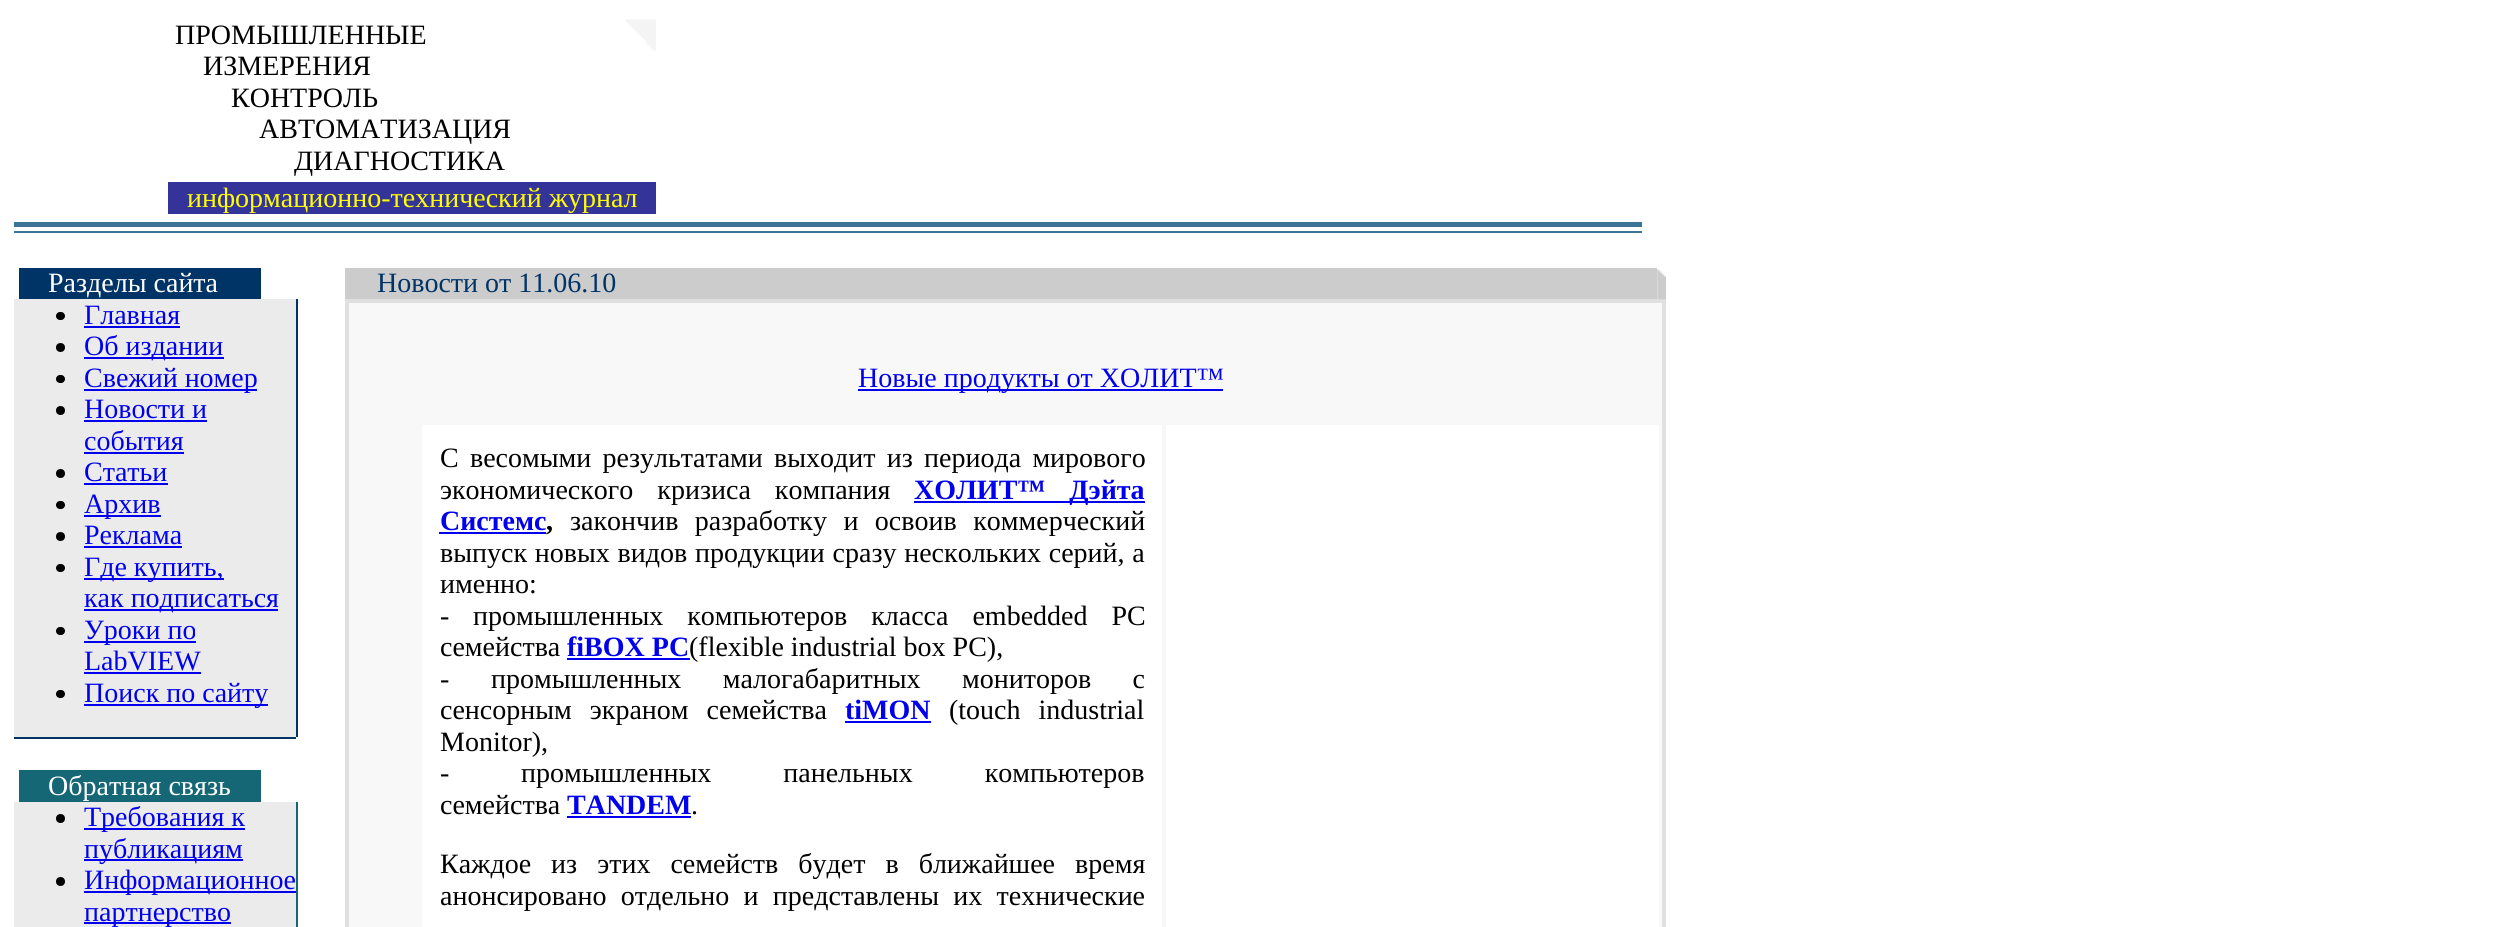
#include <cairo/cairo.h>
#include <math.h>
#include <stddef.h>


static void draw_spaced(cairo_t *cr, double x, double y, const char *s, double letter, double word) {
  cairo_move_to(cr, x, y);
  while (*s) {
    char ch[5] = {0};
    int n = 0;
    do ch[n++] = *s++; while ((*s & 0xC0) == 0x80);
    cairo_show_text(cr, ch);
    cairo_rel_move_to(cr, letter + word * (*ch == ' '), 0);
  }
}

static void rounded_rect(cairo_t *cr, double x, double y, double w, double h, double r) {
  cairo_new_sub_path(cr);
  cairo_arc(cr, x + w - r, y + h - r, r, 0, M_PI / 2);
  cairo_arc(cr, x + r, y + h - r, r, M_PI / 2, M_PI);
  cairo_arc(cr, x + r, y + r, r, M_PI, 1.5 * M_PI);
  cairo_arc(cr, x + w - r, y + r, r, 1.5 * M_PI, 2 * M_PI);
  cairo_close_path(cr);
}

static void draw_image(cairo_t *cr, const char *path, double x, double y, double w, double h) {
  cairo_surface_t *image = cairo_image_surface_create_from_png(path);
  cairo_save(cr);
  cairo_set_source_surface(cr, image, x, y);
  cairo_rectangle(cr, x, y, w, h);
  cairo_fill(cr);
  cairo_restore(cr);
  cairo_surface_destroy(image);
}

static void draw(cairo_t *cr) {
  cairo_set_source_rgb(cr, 1, 1, 1);
  cairo_paint(cr);
  draw_image(cr, "images/1.png", 625, 19, 31, 32);
  cairo_set_source_rgb(cr, 51 / 255.0, 51 / 255.0, 153 / 255.0);
  cairo_rectangle(cr, 168, 182, 488, 32);
  cairo_fill(cr);
  cairo_set_source_rgb(cr, 58 / 255.0, 117 / 255.0, 152 / 255.0);
  cairo_rectangle(cr, 14, 222, 1628, 5);
  cairo_fill(cr);
  cairo_rectangle(cr, 14, 231, 1628, 2);
  cairo_fill(cr);
  cairo_set_source_rgb(cr, 0, 51 / 255.0, 102 / 255.0);
  cairo_rectangle(cr, 19, 268, 242, 31);
  cairo_fill(cr);
  cairo_set_source_rgb(cr, 235 / 255.0, 235 / 255.0, 235 / 255.0);
  cairo_rectangle(cr, 14, 299, 282, 438);
  cairo_fill(cr);
  cairo_set_source_rgb(cr, 0, 0, 0);
  rounded_rect(cr, 56, 312, 9, 8, 4);
  cairo_fill(cr);
  cairo_set_source_rgb(cr, 0, 0, 238 / 255.0);
  cairo_rectangle(cr, 84, 326, 96, 2);
  cairo_fill(cr);
  cairo_set_source_rgb(cr, 0, 0, 0);
  cairo_arc(cr, 60.5, 347.5, 4.5, 0, 2 * M_PI);
  cairo_fill(cr);
  cairo_set_source_rgb(cr, 0, 0, 238 / 255.0);
  cairo_rectangle(cr, 84, 357, 140, 2);
  cairo_fill(cr);
  cairo_set_source_rgb(cr, 0, 0, 0);
  rounded_rect(cr, 56, 375, 9, 8, 4);
  cairo_fill(cr);
  cairo_set_source_rgb(cr, 0, 0, 238 / 255.0);
  cairo_rectangle(cr, 84, 389, 173, 2);
  cairo_fill(cr);
  cairo_set_source_rgb(cr, 0, 0, 0);
  cairo_arc(cr, 60.5, 410.5, 4.5, 0, 2 * M_PI);
  cairo_fill(cr);
  cairo_set_source_rgb(cr, 0, 0, 238 / 255.0);
  cairo_rectangle(cr, 84, 420, 123, 2);
  cairo_fill(cr);
  cairo_rectangle(cr, 84, 452, 100, 2);
  cairo_fill(cr);
  cairo_set_source_rgb(cr, 0, 0, 0);
  cairo_arc(cr, 60.5, 473.5, 4.5, 0, 2 * M_PI);
  cairo_fill(cr);
  cairo_set_source_rgb(cr, 0, 0, 238 / 255.0);
  cairo_rectangle(cr, 84, 483, 84, 2);
  cairo_fill(cr);
  cairo_set_source_rgb(cr, 0, 0, 0);
  rounded_rect(cr, 56, 501, 9, 8, 4);
  cairo_fill(cr);
  cairo_set_source_rgb(cr, 0, 0, 238 / 255.0);
  cairo_rectangle(cr, 84, 515, 77, 2);
  cairo_fill(cr);
  cairo_set_source_rgb(cr, 0, 0, 0);
  cairo_arc(cr, 60.5, 536.5, 4.5, 0, 2 * M_PI);
  cairo_fill(cr);
  cairo_set_source_rgb(cr, 0, 0, 238 / 255.0);
  cairo_rectangle(cr, 84, 546, 98, 2);
  cairo_fill(cr);
  cairo_set_source_rgb(cr, 0, 0, 0);
  rounded_rect(cr, 56, 564, 9, 8, 4);
  cairo_fill(cr);
  cairo_set_source_rgb(cr, 0, 0, 238 / 255.0);
  cairo_rectangle(cr, 84, 578, 140, 2);
  cairo_fill(cr);
  cairo_rectangle(cr, 84, 609, 194, 2);
  cairo_fill(cr);
  cairo_set_source_rgb(cr, 0, 0, 0);
  rounded_rect(cr, 56, 627, 9, 8, 4);
  cairo_fill(cr);
  cairo_set_source_rgb(cr, 0, 0, 238 / 255.0);
  cairo_rectangle(cr, 84, 641, 112, 2);
  cairo_fill(cr);
  cairo_rectangle(cr, 84, 672, 117, 2);
  cairo_fill(cr);
  cairo_set_source_rgb(cr, 0, 0, 0);
  rounded_rect(cr, 56, 690, 9, 8, 4);
  cairo_fill(cr);
  cairo_set_source_rgb(cr, 0, 0, 238 / 255.0);
  cairo_rectangle(cr, 84, 704, 184, 2);
  cairo_fill(cr);
  cairo_set_source_rgb(cr, 0, 51 / 255.0, 102 / 255.0);
  cairo_rectangle(cr, 296, 299, 2, 438);
  cairo_fill(cr);
  cairo_rectangle(cr, 14, 737, 282, 2);
  cairo_fill(cr);
  cairo_set_source_rgb(cr, 21 / 255.0, 103 / 255.0, 118 / 255.0);
  cairo_rectangle(cr, 19, 770, 242, 32);
  cairo_fill(cr);
  cairo_set_source_rgb(cr, 235 / 255.0, 235 / 255.0, 235 / 255.0);
  cairo_rectangle(cr, 14, 802, 282, 125);
  cairo_fill(cr);
  cairo_set_source_rgb(cr, 0, 0, 0);
  cairo_arc(cr, 60.5, 818.5, 4.5, 0, 2 * M_PI);
  cairo_fill(cr);
  cairo_set_source_rgb(cr, 0, 0, 238 / 255.0);
  cairo_rectangle(cr, 84, 828, 161, 2);
  cairo_fill(cr);
  cairo_rectangle(cr, 84, 859, 159, 2);
  cairo_fill(cr);
  cairo_set_source_rgb(cr, 0, 0, 0);
  cairo_arc(cr, 60.5, 881.5, 4.5, 0, 2 * M_PI);
  cairo_fill(cr);
  cairo_set_source_rgb(cr, 0, 0, 238 / 255.0);
  cairo_rectangle(cr, 84, 891, 212, 2);
  cairo_fill(cr);
  cairo_rectangle(cr, 84, 922, 147, 2);
  cairo_fill(cr);
  cairo_set_source_rgb(cr, 21 / 255.0, 103 / 255.0, 118 / 255.0);
  cairo_rectangle(cr, 296, 802, 2, 125);
  cairo_fill(cr);
  cairo_set_source_rgb(cr, 204 / 255.0, 204 / 255.0, 204 / 255.0);
  cairo_rectangle(cr, 345, 268, 1312, 31);
  cairo_fill(cr);
  cairo_set_source_rgb(cr, 248 / 255.0, 248 / 255.0, 248 / 255.0);
  cairo_rectangle(cr, 349, 303, 1313, 624);
  cairo_fill(cr);
  cairo_rectangle(cr, 346, 300, 1319, 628);
  cairo_set_source_rgb(cr, 224 / 255.0, 224 / 255.0, 224 / 255.0);
  cairo_stroke(cr);
  draw_image(cr, "images/2.png", 1657, 269, 9, 31);
  cairo_rectangle(cr, 348, 302, 1315, 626);
  cairo_stroke(cr);
  cairo_set_source_rgb(cr, 0, 0, 238 / 255.0);
  cairo_rectangle(cr, 858, 389, 365, 2);
  cairo_fill(cr);
  cairo_set_source_rgb(cr, 1, 1, 1);
  cairo_rectangle(cr, 422, 425, 740, 502);
  cairo_fill(cr);
  cairo_set_source_rgb(cr, 0, 0, 238 / 255.0);
  cairo_rectangle(cr, 914, 501, 231, 2);
  cairo_fill(cr);
  cairo_rectangle(cr, 439, 532, 107, 2);
  cairo_fill(cr);
  cairo_rectangle(cr, 567, 658, 123, 2);
  cairo_fill(cr);
  cairo_rectangle(cr, 845, 721, 86, 2);
  cairo_fill(cr);
  cairo_rectangle(cr, 567, 816, 124, 2);
  cairo_fill(cr);
  cairo_set_source_rgb(cr, 1, 1, 1);
  cairo_rectangle(cr, 1166, 425, 493, 502);
  cairo_fill(cr);
  cairo_select_font_face(cr, "Liberation Serif", CAIRO_FONT_SLANT_NORMAL, CAIRO_FONT_WEIGHT_NORMAL);
  cairo_set_font_size(cr, 28);
  cairo_set_source_rgb(cr, 0, 0, 0);
  cairo_move_to(cr, 175, 44);
  cairo_show_text(cr, "ПРОМЫШЛЕННЫЕ");
  cairo_move_to(cr, 203, 75);
  cairo_show_text(cr, "ИЗМЕРЕНИЯ");
  cairo_move_to(cr, 231, 107);
  cairo_show_text(cr, "КОНТРОЛЬ");
  cairo_move_to(cr, 259, 138);
  cairo_show_text(cr, "АВТОМАТИЗАЦИЯ");
  cairo_move_to(cr, 294, 170);
  cairo_show_text(cr, "ДИАГНОСТИКА");
  cairo_set_source_rgb(cr, 1, 1, 0);
  cairo_move_to(cr, 187, 207);
  cairo_show_text(cr, "информационно-технический журнал");
  cairo_set_source_rgb(cr, 1, 1, 1);
  cairo_move_to(cr, 48, 292);
  cairo_show_text(cr, "Разделы сайта");
  cairo_set_source_rgb(cr, 0, 0, 238 / 255.0);
  cairo_move_to(cr, 84, 324);
  cairo_show_text(cr, "Главная");
  cairo_move_to(cr, 84, 355);
  cairo_show_text(cr, "Об издании");
  cairo_move_to(cr, 84, 387);
  cairo_show_text(cr, "Свежий номер");
  cairo_move_to(cr, 84, 418);
  cairo_show_text(cr, "Новости и");
  cairo_move_to(cr, 84, 450);
  cairo_show_text(cr, "события");
  cairo_move_to(cr, 84, 481);
  cairo_show_text(cr, "Статьи");
  cairo_move_to(cr, 84, 513);
  cairo_show_text(cr, "Архив");
  cairo_move_to(cr, 84, 544);
  cairo_show_text(cr, "Реклама");
  cairo_move_to(cr, 84, 576);
  cairo_show_text(cr, "Где купить,");
  cairo_move_to(cr, 84, 607);
  cairo_show_text(cr, "как подписаться");
  cairo_move_to(cr, 84, 639);
  cairo_show_text(cr, "Уроки по");
  cairo_move_to(cr, 84, 670);
  cairo_show_text(cr, "LabVIEW");
  cairo_move_to(cr, 84, 702);
  cairo_show_text(cr, "Поиск по сайту");
  cairo_set_source_rgb(cr, 1, 1, 1);
  cairo_move_to(cr, 48, 795);
  cairo_show_text(cr, "Обратная связь");
  cairo_set_source_rgb(cr, 0, 0, 238 / 255.0);
  cairo_move_to(cr, 84, 826);
  cairo_show_text(cr, "Требования к");
  cairo_move_to(cr, 84, 858);
  cairo_show_text(cr, "публикациям");
  cairo_move_to(cr, 84, 889);
  cairo_show_text(cr, "Информационное");
  cairo_move_to(cr, 84, 921);
  cairo_show_text(cr, "партнерство");
  cairo_set_source_rgb(cr, 0, 51 / 255.0, 102 / 255.0);
  cairo_move_to(cr, 377, 292);
  cairo_show_text(cr, "Новости от 11.06.10");
  cairo_set_source_rgb(cr, 0, 0, 238 / 255.0);
  cairo_move_to(cr, 858, 387);
  cairo_show_text(cr, "Новые продукты от ХОЛИТ™");
  cairo_set_source_rgb(cr, 0, 0, 0);
  draw_spaced(cr, 440, 467, "C весомыми результатами выходит из периода мирового", 0, 4.25);
  draw_spaced(cr, 440, 499, "экономического кризиса компания", 0, 17);
  cairo_select_font_face(cr, "Liberation Serif", CAIRO_FONT_SLANT_NORMAL, CAIRO_FONT_WEIGHT_BOLD);
  cairo_set_source_rgb(cr, 0, 0, 238 / 255.0);
  draw_spaced(cr, 914, 499, "ХОЛИТ™ Дэйта", 0, 17);
  cairo_move_to(cr, 440, 530);
  cairo_show_text(cr, "Системс");
  cairo_set_source_rgb(cr, 0, 0, 0);
  cairo_move_to(cr, 546, 530);
  cairo_show_text(cr, ",");
  cairo_select_font_face(cr, "Liberation Serif", CAIRO_FONT_SLANT_NORMAL, CAIRO_FONT_WEIGHT_NORMAL);
  draw_spaced(cr, 570, 530, "закончив разработку и освоив коммерческий", 0, 9.5);
  draw_spaced(cr, 440, 562, "выпуск новых видов продукции сразу нескольких серий, а", 0, 0.75);
  cairo_move_to(cr, 440, 593);
  cairo_show_text(cr, "именно:");
  cairo_move_to(cr, 440, 625);
  cairo_show_text(cr, "-");
  draw_spaced(cr, 473, 625, "промышленных компьютеров класса embedded PC", 0, 17);
  cairo_move_to(cr, 440, 656);
  cairo_show_text(cr, "семейства");
  cairo_select_font_face(cr, "Liberation Serif", CAIRO_FONT_SLANT_NORMAL, CAIRO_FONT_WEIGHT_BOLD);
  cairo_set_source_rgb(cr, 0, 0, 238 / 255.0);
  cairo_move_to(cr, 567, 656);
  cairo_show_text(cr, "fiBOX PC");
  cairo_select_font_face(cr, "Liberation Serif", CAIRO_FONT_SLANT_NORMAL, CAIRO_FONT_WEIGHT_NORMAL);
  cairo_set_source_rgb(cr, 0, 0, 0);
  cairo_move_to(cr, 689, 656);
  cairo_show_text(cr, "(flexible industrial box PC),");
  cairo_move_to(cr, 440, 688);
  cairo_show_text(cr, "-");
  draw_spaced(cr, 491, 688, "промышленных малогабаритных мониторов c", 0, 34.5);
  draw_spaced(cr, 440, 719, "сенсорным экраном семейства", 0, 11);
  cairo_select_font_face(cr, "Liberation Serif", CAIRO_FONT_SLANT_NORMAL, CAIRO_FONT_WEIGHT_BOLD);
  cairo_set_source_rgb(cr, 0, 0, 238 / 255.0);
  cairo_move_to(cr, 845, 719);
  cairo_show_text(cr, "tiMON");
  cairo_select_font_face(cr, "Liberation Serif", CAIRO_FONT_SLANT_NORMAL, CAIRO_FONT_WEIGHT_NORMAL);
  cairo_set_source_rgb(cr, 0, 0, 0);
  draw_spaced(cr, 949, 719, "(touch industrial", 0, 11);
  cairo_move_to(cr, 440, 751);
  cairo_show_text(cr, "Monitor),");
  cairo_move_to(cr, 440, 782);
  cairo_show_text(cr, "-");
  draw_spaced(cr, 521, 782, "промышленных панельных компьютеров", 0, 65);
  cairo_move_to(cr, 440, 814);
  cairo_show_text(cr, "семейства");
  cairo_select_font_face(cr, "Liberation Serif", CAIRO_FONT_SLANT_NORMAL, CAIRO_FONT_WEIGHT_BOLD);
  cairo_set_source_rgb(cr, 0, 0, 238 / 255.0);
  cairo_move_to(cr, 567, 814);
  cairo_show_text(cr, "TANDEM");
  cairo_select_font_face(cr, "Liberation Serif", CAIRO_FONT_SLANT_NORMAL, CAIRO_FONT_WEIGHT_NORMAL);
  cairo_set_source_rgb(cr, 0, 0, 0);
  cairo_move_to(cr, 691, 814);
  cairo_show_text(cr, ".");
  draw_spaced(cr, 440, 873, "Каждое из этих семейств будет в ближайшее время", 0, 13);
  draw_spaced(cr, 440, 905, "анонсировано отдельно и представлены их технические", 0, 7.25);
}

int main(void) {
  cairo_surface_t *surface = cairo_image_surface_create(CAIRO_FORMAT_RGB24, 2506, 927);
  cairo_t *cr = cairo_create(surface);
  cairo_font_options_t *options = cairo_font_options_create();
  cairo_font_options_set_hint_metrics(options, CAIRO_HINT_METRICS_OFF);
  cairo_font_options_set_hint_style(options, CAIRO_HINT_STYLE_NONE);
  cairo_set_font_options(cr, options);
  cairo_set_miter_limit(cr, 4);
  draw(cr);
  cairo_surface_write_to_png(surface, "out.png");
  cairo_font_options_destroy(options);
  cairo_destroy(cr);
  cairo_surface_destroy(surface);
  return 0;
}
